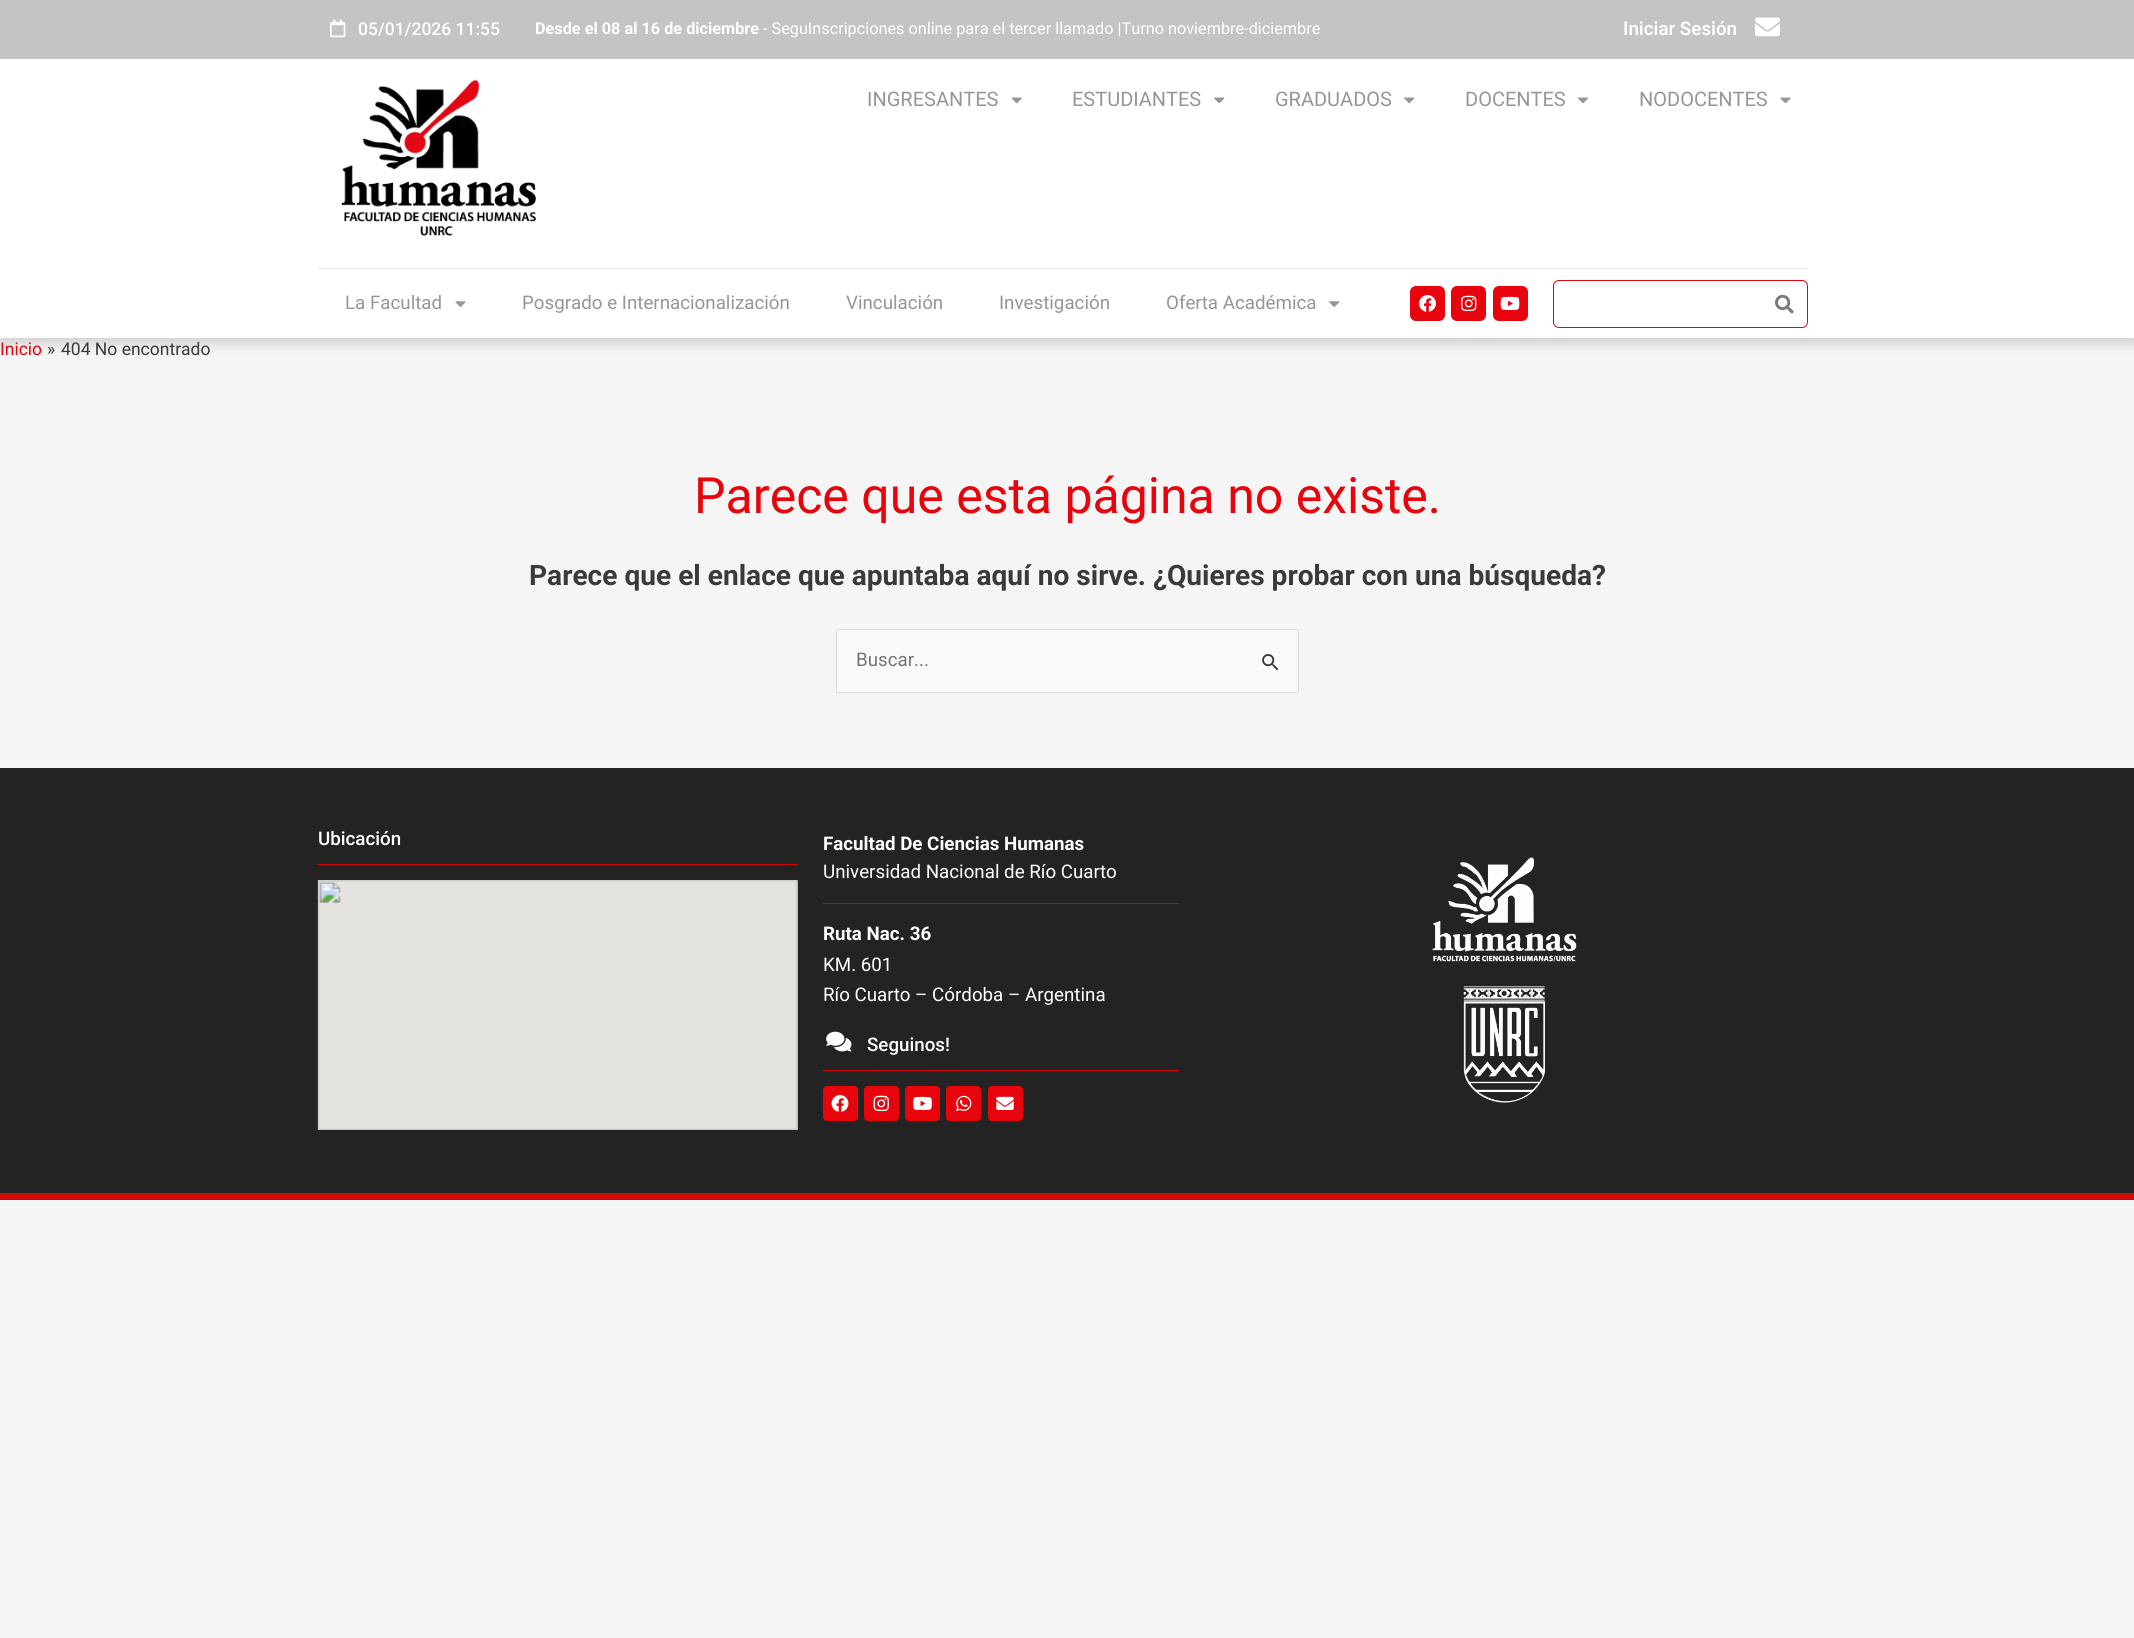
#include <cairo/cairo.h>
#include <math.h>
#include <stddef.h>


static void rounded_rect(cairo_t *cr, double x, double y, double w, double h, double r) {
  cairo_new_sub_path(cr);
  cairo_arc(cr, x + w - r, y + h - r, r, 0, M_PI / 2);
  cairo_arc(cr, x + r, y + h - r, r, M_PI / 2, M_PI);
  cairo_arc(cr, x + r, y + r, r, M_PI, 1.5 * M_PI);
  cairo_arc(cr, x + w - r, y + r, r, 1.5 * M_PI, 2 * M_PI);
  cairo_close_path(cr);
}

static void draw_shadow(cairo_t *cr, double x, double y, double w, double h, double r, double blur, double alpha) {
  cairo_push_group_with_content(cr, CAIRO_CONTENT_ALPHA);
  cairo_set_operator(cr, CAIRO_OPERATOR_SOURCE);
  for (int i = 15; i >= -15 && fmin(w, h) + blur * i / 3 > 0; i -= 2) {
    double e = blur * i / 6;
    cairo_set_source_rgba(cr, 0, 0, 0, alpha * erfc((i - 1) / 8.5) / 2);
    rounded_rect(cr, x - e, y - e, w + 2 * e, h + 2 * e, fmax(0, fmin(r + e + blur * .6, fmin(w, h) / 2 + e)));
    cairo_fill(cr);
  }
  cairo_pattern_t *soft = cairo_pop_group(cr);
  cairo_mask(cr, soft);
  cairo_pattern_destroy(soft);
}

static void draw_image(cairo_t *cr, const char *path, double x, double y, double w, double h) {
  cairo_surface_t *image = cairo_image_surface_create_from_png(path);
  cairo_save(cr);
  cairo_set_source_surface(cr, image, x, y);
  cairo_rectangle(cr, x, y, w, h);
  cairo_fill(cr);
  cairo_restore(cr);
  cairo_surface_destroy(image);
}

static void draw(cairo_t *cr) {
  cairo_set_source_rgb(cr, 245 / 255.0, 245 / 255.0, 245 / 255.0);
  cairo_paint(cr);
  cairo_set_source_rgb(cr, 196 / 255.0, 196 / 255.0, 196 / 255.0);
  cairo_rectangle(cr, 0, 0, 2134, 59);
  cairo_fill(cr);
  draw_image(cr, "images/1.png", 330, 19, 16, 19);
  draw_image(cr, "images/2.png", 1755, 17, 25, 20);
  cairo_set_source_rgb(cr, 0, 0, 0);
  draw_shadow(cr, 0, 274, 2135, 70, 0, 6, 0.15);
  cairo_set_source_rgb(cr, 1, 1, 1);
  cairo_rectangle(cr, 0, 59, 2134, 279);
  cairo_fill(cr);
  draw_image(cr, "images/3.png", 341, 79, 195, 157);
  draw_image(cr, "images/4.png", 1011, 97, 11, 7);
  draw_image(cr, "images/5.png", 1214, 97, 11, 7);
  draw_image(cr, "images/5.png", 1404, 97, 11, 7);
  draw_image(cr, "images/6.png", 1577, 97, 11, 7);
  draw_image(cr, "images/7.png", 1780, 97, 11, 7);
  cairo_set_source_rgb(cr, 231 / 255.0, 231 / 255.0, 231 / 255.0);
  cairo_rectangle(cr, 318, 268, 1490, 1);
  cairo_fill(cr);
  draw_image(cr, "images/8.png", 455, 301, 11, 6);
  draw_image(cr, "images/9.png", 1329, 301, 11, 6);
  cairo_set_source_rgb(cr, 232 / 255.0, 4 / 255.0, 12 / 255.0);
  rounded_rect(cr, 1410, 286, 35, 35, 6);
  cairo_fill(cr);
  draw_image(cr, "images/10.png", 1419, 295, 17, 17);
  rounded_rect(cr, 1451, 286, 35, 35, 6);
  cairo_fill(cr);
  draw_image(cr, "images/11.png", 1461, 295, 16, 17);
  rounded_rect(cr, 1493, 286, 35, 35, 6);
  cairo_fill(cr);
  draw_image(cr, "images/12.png", 1500, 296, 20, 14);
  rounded_rect(cr, 1553.5, 280.5, 254, 47, 5.5);
  cairo_set_line_width(cr, 1);
  cairo_stroke(cr);
  draw_image(cr, "images/13.png", 1775, 294, 19, 20);
  cairo_set_source_rgb(cr, 250 / 255.0, 250 / 255.0, 250 / 255.0);
  rounded_rect(cr, 836.5, 629.5, 462, 63, 2);
  cairo_fill_preserve(cr);
  cairo_set_source_rgb(cr, 221 / 255.0, 221 / 255.0, 221 / 255.0);
  cairo_stroke(cr);
  draw_image(cr, "images/14.png", 1262, 654, 16, 17);
  cairo_set_source_rgb(cr, 35 / 255.0, 35 / 255.0, 35 / 255.0);
  cairo_rectangle(cr, 0, 768, 2134, 425);
  cairo_fill(cr);
  cairo_set_source_rgb(cr, 207 / 255.0, 9 / 255.0, 8 / 255.0);
  cairo_rectangle(cr, 318, 864, 480, 1);
  cairo_fill(cr);
  draw_image(cr, "images/15.png", 317, 880, 481, 250);
  cairo_rectangle(cr, 823, 903, 356, 1);
  cairo_fill(cr);
  draw_image(cr, "images/16.png", 826, 1031, 26, 21);
  cairo_rectangle(cr, 823, 1070, 356, 1);
  cairo_fill(cr);
  cairo_set_source_rgb(cr, 232 / 255.0, 4 / 255.0, 12 / 255.0);
  rounded_rect(cr, 823, 1086, 35, 35, 4);
  cairo_fill(cr);
  draw_image(cr, "images/17.png", 831, 1095, 18, 17);
  rounded_rect(cr, 864, 1086, 35, 35, 4);
  cairo_fill(cr);
  draw_image(cr, "images/18.png", 873, 1095, 16, 17);
  rounded_rect(cr, 905, 1086, 35, 35, 4);
  cairo_fill(cr);
  draw_image(cr, "images/19.png", 913, 1096, 19, 14);
  rounded_rect(cr, 946, 1086, 35, 35, 4);
  cairo_fill(cr);
  draw_image(cr, "images/20.png", 956, 1095, 16, 16);
  rounded_rect(cr, 988, 1086, 35, 35, 4);
  cairo_fill(cr);
  draw_image(cr, "images/21.png", 996, 1096, 18, 14);
  draw_image(cr, "images/22.png", 1432, 857, 145, 105);
  draw_image(cr, "images/23.png", 1463, 986, 82, 117);
  cairo_set_source_rgb(cr, 207 / 255.0, 9 / 255.0, 8 / 255.0);
  cairo_rectangle(cr, 0, 1193, 2134, 7);
  cairo_fill(cr);
  cairo_select_font_face(cr, "Roboto Medium", CAIRO_FONT_SLANT_NORMAL, CAIRO_FONT_WEIGHT_NORMAL);
  cairo_set_font_size(cr, 17.5);
  cairo_set_source_rgb(cr, 1, 1, 1);
  cairo_move_to(cr, 358, 35);
  cairo_show_text(cr, "05/01/2026 11:55");
  cairo_select_font_face(cr, "Roboto", CAIRO_FONT_SLANT_NORMAL, CAIRO_FONT_WEIGHT_BOLD);
  cairo_set_font_size(cr, 16.25);
  cairo_move_to(cr, 535, 34);
  cairo_show_text(cr, "Desde el 08 al 16 de diciembre");
  cairo_select_font_face(cr, "Roboto", CAIRO_FONT_SLANT_NORMAL, CAIRO_FONT_WEIGHT_NORMAL);
  cairo_move_to(cr, 763, 34);
  cairo_show_text(cr, "- SeguInscripciones online para el tercer llamado |Turno noviembre-diciembre");
  cairo_select_font_face(cr, "Roboto SemiBold", CAIRO_FONT_SLANT_NORMAL, CAIRO_FONT_WEIGHT_NORMAL);
  cairo_set_font_size(cr, 18.75);
  cairo_move_to(cr, 1623, 35);
  cairo_show_text(cr, "Iniciar Sesión");
  cairo_select_font_face(cr, "Roboto", CAIRO_FONT_SLANT_NORMAL, CAIRO_FONT_WEIGHT_NORMAL);
  cairo_set_font_size(cr, 20);
  cairo_set_source_rgb(cr, 150 / 255.0, 150 / 255.0, 150 / 255.0);
  cairo_move_to(cr, 867, 106);
  cairo_show_text(cr, "INGRESANTES");
  cairo_move_to(cr, 1072, 106);
  cairo_show_text(cr, "ESTUDIANTES");
  cairo_move_to(cr, 1275, 106);
  cairo_show_text(cr, "GRADUADOS");
  cairo_move_to(cr, 1465, 106);
  cairo_show_text(cr, "DOCENTES");
  cairo_move_to(cr, 1639, 106);
  cairo_show_text(cr, "NODOCENTES");
  cairo_set_font_size(cr, 18.75);
  cairo_move_to(cr, 345, 309);
  cairo_show_text(cr, "La Facultad");
  cairo_move_to(cr, 522, 309);
  cairo_show_text(cr, "Posgrado e Internacionalización");
  cairo_move_to(cr, 846, 309);
  cairo_show_text(cr, "Vinculación");
  cairo_move_to(cr, 999, 309);
  cairo_show_text(cr, "Investigación");
  cairo_move_to(cr, 1166, 309);
  cairo_show_text(cr, "Oferta Académica");
  cairo_set_font_size(cr, 17.5);
  cairo_set_source_rgb(cr, 232 / 255.0, 4 / 255.0, 12 / 255.0);
  cairo_move_to(cr, 0, 355);
  cairo_show_text(cr, "Inicio");
  cairo_set_source_rgb(cr, 58 / 255.0, 58 / 255.0, 58 / 255.0);
  cairo_move_to(cr, 47, 355);
  cairo_show_text(cr, "»");
  cairo_move_to(cr, 61, 355);
  cairo_show_text(cr, "404 No encontrado");
  cairo_set_font_size(cr, 50);
  cairo_set_source_rgb(cr, 232 / 255.0, 4 / 255.0, 12 / 255.0);
  cairo_move_to(cr, 694, 513);
  cairo_show_text(cr, "Parece que esta página no existe.");
  cairo_select_font_face(cr, "Roboto", CAIRO_FONT_SLANT_NORMAL, CAIRO_FONT_WEIGHT_BOLD);
  cairo_set_font_size(cr, 28.1);
  cairo_set_source_rgb(cr, 58 / 255.0, 58 / 255.0, 58 / 255.0);
  cairo_move_to(cr, 529, 585);
  cairo_show_text(cr, "Parece que el enlace que apuntaba aquí no sirve. ¿Quieres probar con una búsqueda?");
  cairo_select_font_face(cr, "Roboto", CAIRO_FONT_SLANT_NORMAL, CAIRO_FONT_WEIGHT_NORMAL);
  cairo_set_font_size(cr, 18.75);
  cairo_set_source_rgb(cr, 117 / 255.0, 117 / 255.0, 117 / 255.0);
  cairo_move_to(cr, 856, 666);
  cairo_show_text(cr, "Buscar...");
  cairo_select_font_face(cr, "Roboto Medium", CAIRO_FONT_SLANT_NORMAL, CAIRO_FONT_WEIGHT_NORMAL);
  cairo_set_source_rgb(cr, 1, 1, 1);
  cairo_move_to(cr, 318, 845);
  cairo_show_text(cr, "Ubicación");
  cairo_select_font_face(cr, "Roboto", CAIRO_FONT_SLANT_NORMAL, CAIRO_FONT_WEIGHT_BOLD);
  cairo_move_to(cr, 823, 850);
  cairo_show_text(cr, "Facultad De Ciencias Humanas");
  cairo_select_font_face(cr, "Roboto", CAIRO_FONT_SLANT_NORMAL, CAIRO_FONT_WEIGHT_NORMAL);
  cairo_move_to(cr, 823, 878);
  cairo_show_text(cr, "Universidad Nacional de Río Cuarto");
  cairo_select_font_face(cr, "Roboto", CAIRO_FONT_SLANT_NORMAL, CAIRO_FONT_WEIGHT_BOLD);
  cairo_move_to(cr, 823, 940);
  cairo_show_text(cr, "Ruta Nac. 36");
  cairo_select_font_face(cr, "Roboto", CAIRO_FONT_SLANT_NORMAL, CAIRO_FONT_WEIGHT_NORMAL);
  cairo_move_to(cr, 823, 971);
  cairo_show_text(cr, "KM. 601");
  cairo_move_to(cr, 823, 1001);
  cairo_show_text(cr, "Río Cuarto – Córdoba – Argentina");
  cairo_select_font_face(cr, "Roboto Medium", CAIRO_FONT_SLANT_NORMAL, CAIRO_FONT_WEIGHT_NORMAL);
  cairo_move_to(cr, 867, 1051);
  cairo_show_text(cr, "Seguinos!");
}

int main(void) {
  cairo_surface_t *surface = cairo_image_surface_create(CAIRO_FORMAT_RGB24, 2134, 1638);
  cairo_t *cr = cairo_create(surface);
  cairo_font_options_t *options = cairo_font_options_create();
  cairo_font_options_set_hint_metrics(options, CAIRO_HINT_METRICS_OFF);
  cairo_font_options_set_hint_style(options, CAIRO_HINT_STYLE_NONE);
  cairo_set_font_options(cr, options);
  cairo_set_miter_limit(cr, 4);
  draw(cr);
  cairo_surface_write_to_png(surface, "out.png");
  cairo_font_options_destroy(options);
  cairo_destroy(cr);
  cairo_surface_destroy(surface);
  return 0;
}
